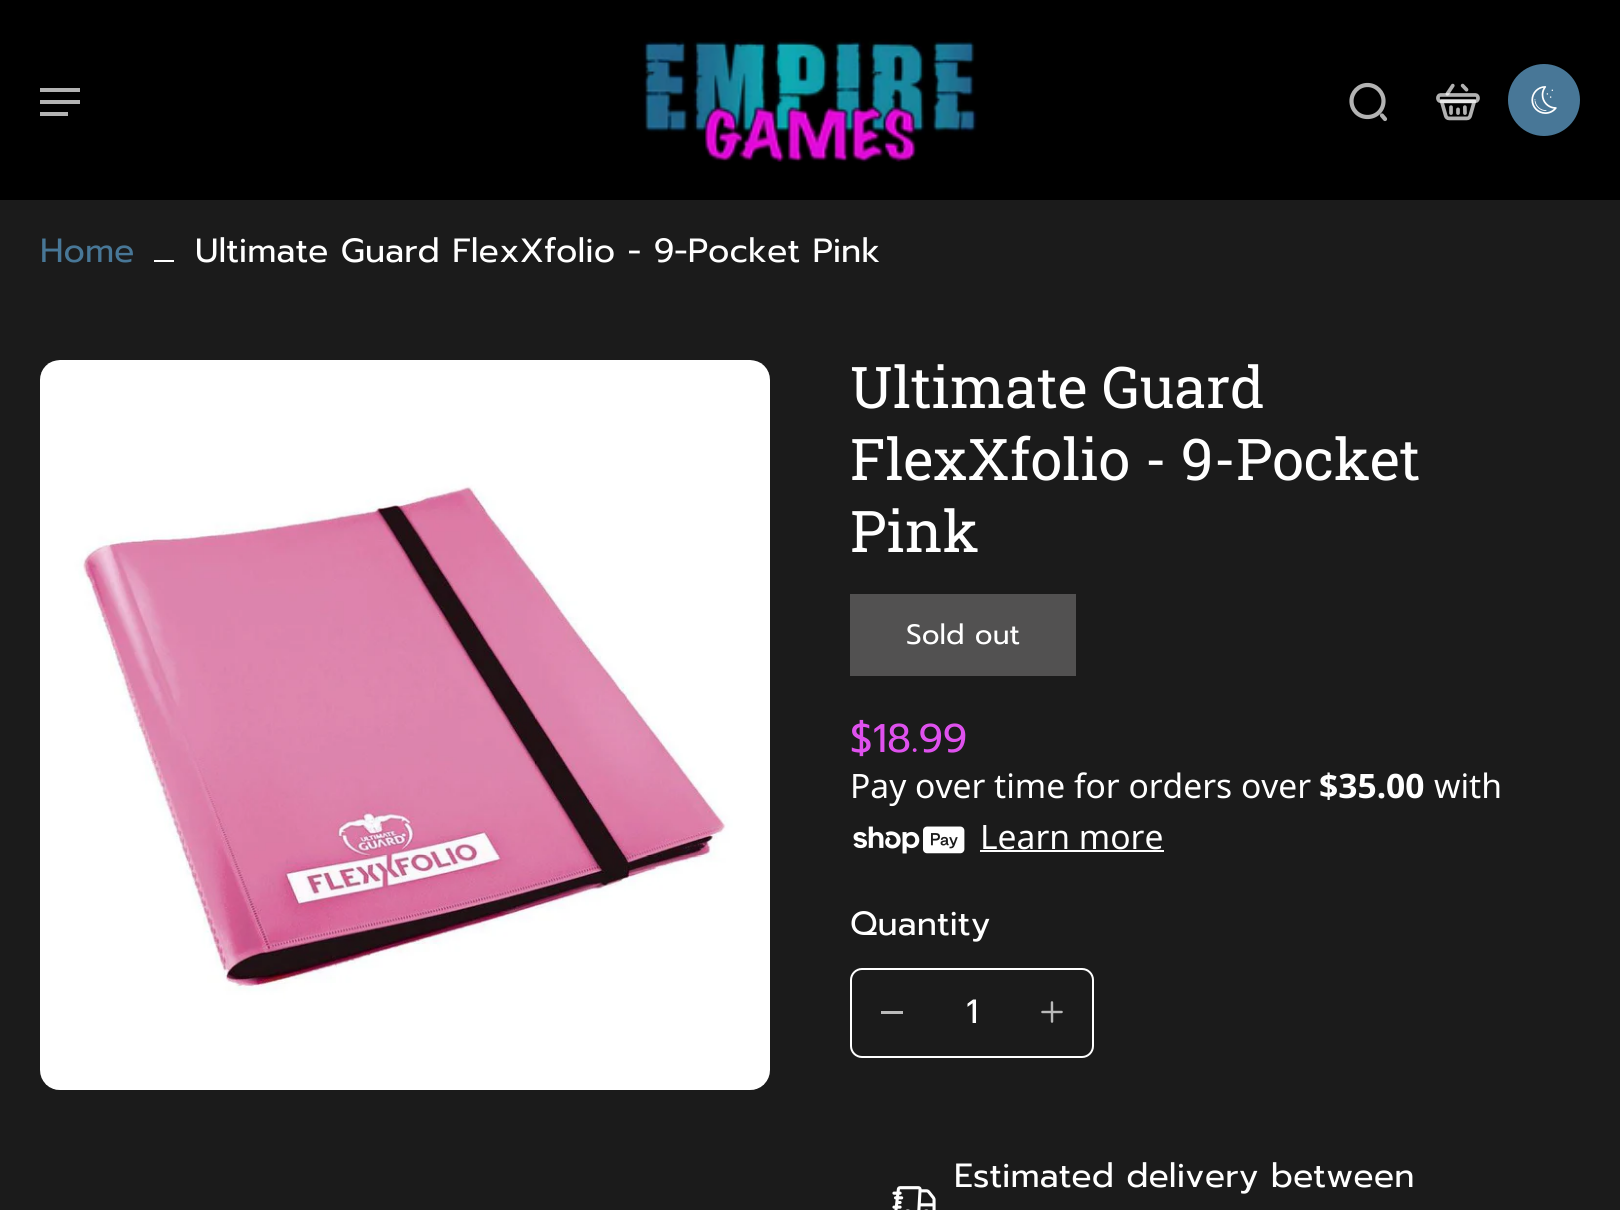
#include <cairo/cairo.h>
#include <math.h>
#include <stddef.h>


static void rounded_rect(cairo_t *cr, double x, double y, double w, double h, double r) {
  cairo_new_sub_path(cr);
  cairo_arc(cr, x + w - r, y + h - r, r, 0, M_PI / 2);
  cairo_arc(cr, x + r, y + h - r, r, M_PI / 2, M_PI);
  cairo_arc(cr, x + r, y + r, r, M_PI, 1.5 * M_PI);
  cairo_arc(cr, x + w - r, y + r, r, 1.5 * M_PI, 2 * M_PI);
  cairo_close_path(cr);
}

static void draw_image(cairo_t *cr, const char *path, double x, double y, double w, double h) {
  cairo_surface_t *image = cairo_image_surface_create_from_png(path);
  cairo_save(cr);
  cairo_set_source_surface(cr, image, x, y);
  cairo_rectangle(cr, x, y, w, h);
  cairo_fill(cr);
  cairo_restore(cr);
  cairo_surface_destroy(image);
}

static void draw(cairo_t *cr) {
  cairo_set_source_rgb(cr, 27 / 255.0, 27 / 255.0, 27 / 255.0);
  cairo_paint(cr);
  cairo_set_source_rgb(cr, 0, 0, 0);
  cairo_rectangle(cr, 0, 0, 1620, 200);
  cairo_fill(cr);
  cairo_set_source_rgb(cr, 179 / 255.0, 179 / 255.0, 179 / 255.0);
  cairo_set_fill_rule(cr, CAIRO_FILL_RULE_EVEN_ODD);
  cairo_new_path(cr);
  cairo_move_to(cr, 40, 88);
  cairo_line_to(cr, 40, 92);
  cairo_line_to(cr, 80, 92);
  cairo_line_to(cr, 80, 88);
  cairo_close_path(cr);
  cairo_move_to(cr, 40, 104);
  cairo_line_to(cr, 80, 104);
  cairo_line_to(cr, 80, 100);
  cairo_line_to(cr, 40, 100);
  cairo_close_path(cr);
  cairo_move_to(cr, 40, 116);
  cairo_line_to(cr, 68, 116);
  cairo_line_to(cr, 68, 112);
  cairo_line_to(cr, 40, 112);
  cairo_close_path(cr);
  cairo_fill(cr);
  draw_image(cr, "images/1.png", 643, 39, 335, 123);
  cairo_new_path(cr);
  cairo_move_to(cr, 1367.5, 117);
  cairo_curve_to(cr, 1376.5, 117, 1383.5, 110, 1383.5, 101);
  cairo_curve_to(cr, 1383.5, 92.5, 1376.5, 85, 1367.5, 85);
  cairo_curve_to(cr, 1358.5, 85, 1351.5, 92.5, 1351.5, 101);
  cairo_curve_to(cr, 1351.5, 110, 1358.5, 117, 1367.5, 117);
  cairo_close_path(cr);
  cairo_move_to(cr, 1385, 119);
  cairo_line_to(cr, 1382, 115.5);
  cairo_set_line_width(cr, 4.2);
  cairo_set_line_cap(cr, CAIRO_LINE_CAP_ROUND);
  cairo_set_line_join(cr, CAIRO_LINE_JOIN_ROUND);
  cairo_stroke(cr);
  draw_image(cr, "images/2.png", 1436, 83, 44, 38);
  cairo_set_source_rgb(cr, 72 / 255.0, 119 / 255.0, 151 / 255.0);
  cairo_arc(cr, 1544, 100, 36, 0, 2 * M_PI);
  cairo_fill(cr);
  draw_image(cr, "images/3.png", 1531, 86, 26, 28);
  cairo_set_source_rgb(cr, 1, 1, 1);
  cairo_rectangle(cr, 154, 260, 20, 2);
  cairo_fill(cr);
  draw_image(cr, "images/4.png", 40, 360, 730, 730);
  cairo_set_source_rgb(cr, 82 / 255.0, 81 / 255.0, 81 / 255.0);
  cairo_rectangle(cr, 850, 594, 226, 82);
  cairo_fill(cr);
  draw_image(cr, "images/5.png", 853, 826, 112, 28);
  cairo_set_source_rgb(cr, 1, 1, 1);
  cairo_rectangle(cr, 980, 850, 184, 2);
  cairo_fill(cr);
  rounded_rect(cr, 851, 969, 242, 88, 11);
  cairo_set_line_width(cr, 2);
  cairo_set_line_cap(cr, CAIRO_LINE_CAP_BUTT);
  cairo_set_line_join(cr, CAIRO_LINE_JOIN_MITER);
  cairo_stroke(cr);
  cairo_set_source_rgb(cr, 187 / 255.0, 187 / 255.0, 187 / 255.0);
  cairo_rectangle(cr, 881, 1011, 22, 3);
  cairo_fill(cr);
  draw_image(cr, "images/6.png", 1041, 1001, 22, 22);
  draw_image(cr, "images/7.png", 892, 1186, 44, 24);
  cairo_select_font_face(cr, "Prompt", CAIRO_FONT_SLANT_NORMAL, CAIRO_FONT_WEIGHT_NORMAL);
  cairo_set_font_size(cr, 33.6);
  cairo_set_source_rgb(cr, 72 / 255.0, 119 / 255.0, 151 / 255.0);
  cairo_move_to(cr, 40, 262);
  cairo_show_text(cr, "Home");
  cairo_set_source_rgb(cr, 1, 1, 1);
  cairo_move_to(cr, 195, 262);
  cairo_show_text(cr, "Ultimate Guard FlexXfolio - 9-Pocket Pink");
  cairo_select_font_face(cr, "Roboto Slab", CAIRO_FONT_SLANT_NORMAL, CAIRO_FONT_WEIGHT_NORMAL);
  cairo_set_font_size(cr, 57.5);
  cairo_move_to(cr, 850, 408);
  cairo_show_text(cr, "Ultimate Guard");
  cairo_move_to(cr, 850, 480);
  cairo_show_text(cr, "FlexXfolio - 9-Pocket");
  cairo_move_to(cr, 850, 552);
  cairo_show_text(cr, "Pink");
  cairo_select_font_face(cr, "Prompt", CAIRO_FONT_SLANT_NORMAL, CAIRO_FONT_WEIGHT_NORMAL);
  cairo_set_font_size(cr, 28);
  cairo_move_to(cr, 906, 644);
  cairo_show_text(cr, "Sold out");
  cairo_set_font_size(cr, 40);
  cairo_set_source_rgb(cr, 223 / 255.0, 81 / 255.0, 238 / 255.0);
  cairo_move_to(cr, 850, 752);
  cairo_show_text(cr, "$18.99");
  cairo_select_font_face(cr, "Noto Sans", CAIRO_FONT_SLANT_NORMAL, CAIRO_FONT_WEIGHT_NORMAL);
  cairo_set_font_size(cr, 33.6);
  cairo_set_source_rgb(cr, 1, 1, 1);
  cairo_move_to(cr, 850, 798);
  cairo_show_text(cr, "Pay over time for orders over");
  cairo_select_font_face(cr, "Noto Sans", CAIRO_FONT_SLANT_NORMAL, CAIRO_FONT_WEIGHT_BOLD);
  cairo_move_to(cr, 1319, 798);
  cairo_show_text(cr, "$35.00");
  cairo_select_font_face(cr, "Noto Sans", CAIRO_FONT_SLANT_NORMAL, CAIRO_FONT_WEIGHT_NORMAL);
  cairo_move_to(cr, 1434, 798);
  cairo_show_text(cr, "with");
  cairo_move_to(cr, 980, 849);
  cairo_show_text(cr, "Learn more");
  cairo_select_font_face(cr, "Prompt", CAIRO_FONT_SLANT_NORMAL, CAIRO_FONT_WEIGHT_NORMAL);
  cairo_move_to(cr, 850, 935);
  cairo_show_text(cr, "Quantity");
  cairo_move_to(cr, 966, 1023);
  cairo_show_text(cr, "1");
  cairo_move_to(cr, 954, 1187);
  cairo_show_text(cr, "Estimated delivery between");
}

int main(void) {
  cairo_surface_t *surface = cairo_image_surface_create(CAIRO_FORMAT_RGB24, 1620, 1210);
  cairo_t *cr = cairo_create(surface);
  cairo_font_options_t *options = cairo_font_options_create();
  cairo_font_options_set_hint_metrics(options, CAIRO_HINT_METRICS_OFF);
  cairo_font_options_set_hint_style(options, CAIRO_HINT_STYLE_NONE);
  cairo_set_font_options(cr, options);
  cairo_set_miter_limit(cr, 4);
  draw(cr);
  cairo_surface_write_to_png(surface, "out.png");
  cairo_font_options_destroy(options);
  cairo_destroy(cr);
  cairo_surface_destroy(surface);
  return 0;
}
